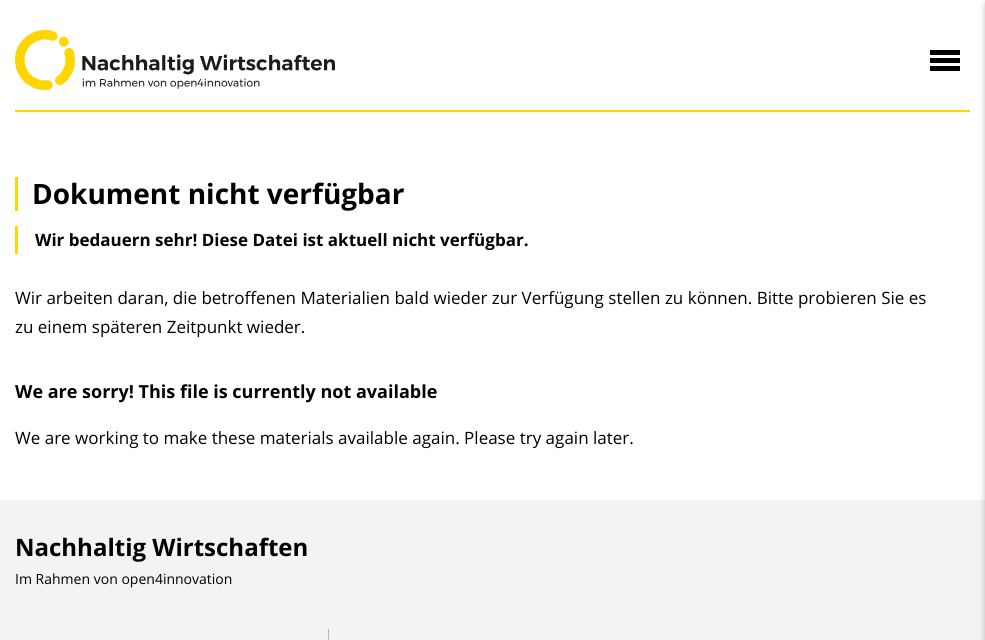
#include <cairo/cairo.h>
#include <math.h>
#include <stddef.h>


static void rounded_rect(cairo_t *cr, double x, double y, double w, double h, double r) {
  cairo_new_sub_path(cr);
  cairo_arc(cr, x + w - r, y + h - r, r, 0, M_PI / 2);
  cairo_arc(cr, x + r, y + h - r, r, M_PI / 2, M_PI);
  cairo_arc(cr, x + r, y + r, r, M_PI, 1.5 * M_PI);
  cairo_arc(cr, x + w - r, y + r, r, 1.5 * M_PI, 2 * M_PI);
  cairo_close_path(cr);
}

static void draw_shadow(cairo_t *cr, double x, double y, double w, double h, double r, double blur, double alpha) {
  cairo_push_group_with_content(cr, CAIRO_CONTENT_ALPHA);
  cairo_set_operator(cr, CAIRO_OPERATOR_SOURCE);
  for (int i = 15; i >= -15 && fmin(w, h) + blur * i / 3 > 0; i -= 2) {
    double e = blur * i / 6;
    cairo_set_source_rgba(cr, 0, 0, 0, alpha * erfc((i - 1) / 8.5) / 2);
    rounded_rect(cr, x - e, y - e, w + 2 * e, h + 2 * e, fmax(0, fmin(r + e + blur * .6, fmin(w, h) / 2 + e)));
    cairo_fill(cr);
  }
  cairo_pattern_t *soft = cairo_pop_group(cr);
  cairo_mask(cr, soft);
  cairo_pattern_destroy(soft);
}

static void draw_image(cairo_t *cr, const char *path, double x, double y, double w, double h) {
  cairo_surface_t *image = cairo_image_surface_create_from_png(path);
  cairo_save(cr);
  cairo_set_source_surface(cr, image, x, y);
  cairo_rectangle(cr, x, y, w, h);
  cairo_fill(cr);
  cairo_restore(cr);
  cairo_surface_destroy(image);
}

static void draw(cairo_t *cr) {
  cairo_set_source_rgb(cr, 1, 1, 1);
  cairo_paint(cr);
  draw_image(cr, "images/1.png", 15, 30, 320, 60);
  cairo_set_source_rgb(cr, 0, 0, 0);
  cairo_rectangle(cr, 930, 58, 30, 5);
  cairo_fill(cr);
  cairo_rectangle(cr, 930, 50, 30, 5);
  cairo_fill(cr);
  cairo_rectangle(cr, 930, 66, 30, 5);
  cairo_fill(cr);
  cairo_set_source_rgb(cr, 243 / 255.0, 243 / 255.0, 243 / 255.0);
  cairo_rectangle(cr, 0, 500, 985, 140);
  cairo_fill(cr);
  cairo_set_source_rgb(cr, 0, 0, 0);
  draw_shadow(cr, 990, 5, 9, 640, 0, 4.5, 1);
  cairo_set_source_rgb(cr, 1, 214 / 255.0, 0);
  cairo_rectangle(cr, 15, 110, 955, 2);
  cairo_fill(cr);
  cairo_rectangle(cr, 15, 177, 3, 34);
  cairo_fill(cr);
  cairo_rectangle(cr, 15, 226, 3, 28);
  cairo_fill(cr);
  cairo_set_source_rgb(cr, 185 / 255.0, 185 / 255.0, 185 / 255.0);
  cairo_rectangle(cr, 328, 629, 1, 11);
  cairo_fill(cr);
  cairo_select_font_face(cr, "Open Sans", CAIRO_FONT_SLANT_NORMAL, CAIRO_FONT_WEIGHT_BOLD);
  cairo_set_font_size(cr, 28);
  cairo_set_source_rgb(cr, 0, 0, 0);
  cairo_move_to(cr, 32, 204);
  cairo_show_text(cr, "Dokument nicht verfügbar");
  cairo_set_font_size(cr, 17);
  cairo_move_to(cr, 35, 246);
  cairo_show_text(cr, "Wir bedauern sehr! Diese Datei ist aktuell nicht verfügbar.");
  cairo_select_font_face(cr, "Open Sans", CAIRO_FONT_SLANT_NORMAL, CAIRO_FONT_WEIGHT_NORMAL);
  cairo_move_to(cr, 15, 304);
  cairo_show_text(cr, "Wir arbeiten daran, die betroffenen Materialien bald wieder zur Verfügung stellen zu können. Bitte probieren Sie es");
  cairo_move_to(cr, 15, 333);
  cairo_show_text(cr, "zu einem späteren Zeitpunkt wieder.");
  cairo_select_font_face(cr, "Open Sans", CAIRO_FONT_SLANT_NORMAL, CAIRO_FONT_WEIGHT_BOLD);
  cairo_set_font_size(cr, 18);
  cairo_move_to(cr, 15, 398);
  cairo_show_text(cr, "We are sorry! This file is currently not available");
  cairo_select_font_face(cr, "Open Sans", CAIRO_FONT_SLANT_NORMAL, CAIRO_FONT_WEIGHT_NORMAL);
  cairo_set_font_size(cr, 17);
  cairo_move_to(cr, 15, 444);
  cairo_show_text(cr, "We are working to make these materials available again. Please try again later.");
  cairo_select_font_face(cr, "Open Sans", CAIRO_FONT_SLANT_NORMAL, CAIRO_FONT_WEIGHT_BOLD);
  cairo_set_font_size(cr, 24);
  cairo_move_to(cr, 15, 556);
  cairo_show_text(cr, "Nachhaltig Wirtschaften");
  cairo_select_font_face(cr, "Open Sans", CAIRO_FONT_SLANT_NORMAL, CAIRO_FONT_WEIGHT_NORMAL);
  cairo_set_font_size(cr, 14);
  cairo_move_to(cr, 15, 584);
  cairo_show_text(cr, "Im Rahmen von open4innovation");
}

int main(void) {
  cairo_surface_t *surface = cairo_image_surface_create(CAIRO_FORMAT_RGB24, 985, 640);
  cairo_t *cr = cairo_create(surface);
  cairo_font_options_t *options = cairo_font_options_create();
  cairo_font_options_set_hint_metrics(options, CAIRO_HINT_METRICS_OFF);
  cairo_font_options_set_hint_style(options, CAIRO_HINT_STYLE_NONE);
  cairo_set_font_options(cr, options);
  cairo_set_miter_limit(cr, 4);
  draw(cr);
  cairo_surface_write_to_png(surface, "out.png");
  cairo_font_options_destroy(options);
  cairo_destroy(cr);
  cairo_surface_destroy(surface);
  return 0;
}
